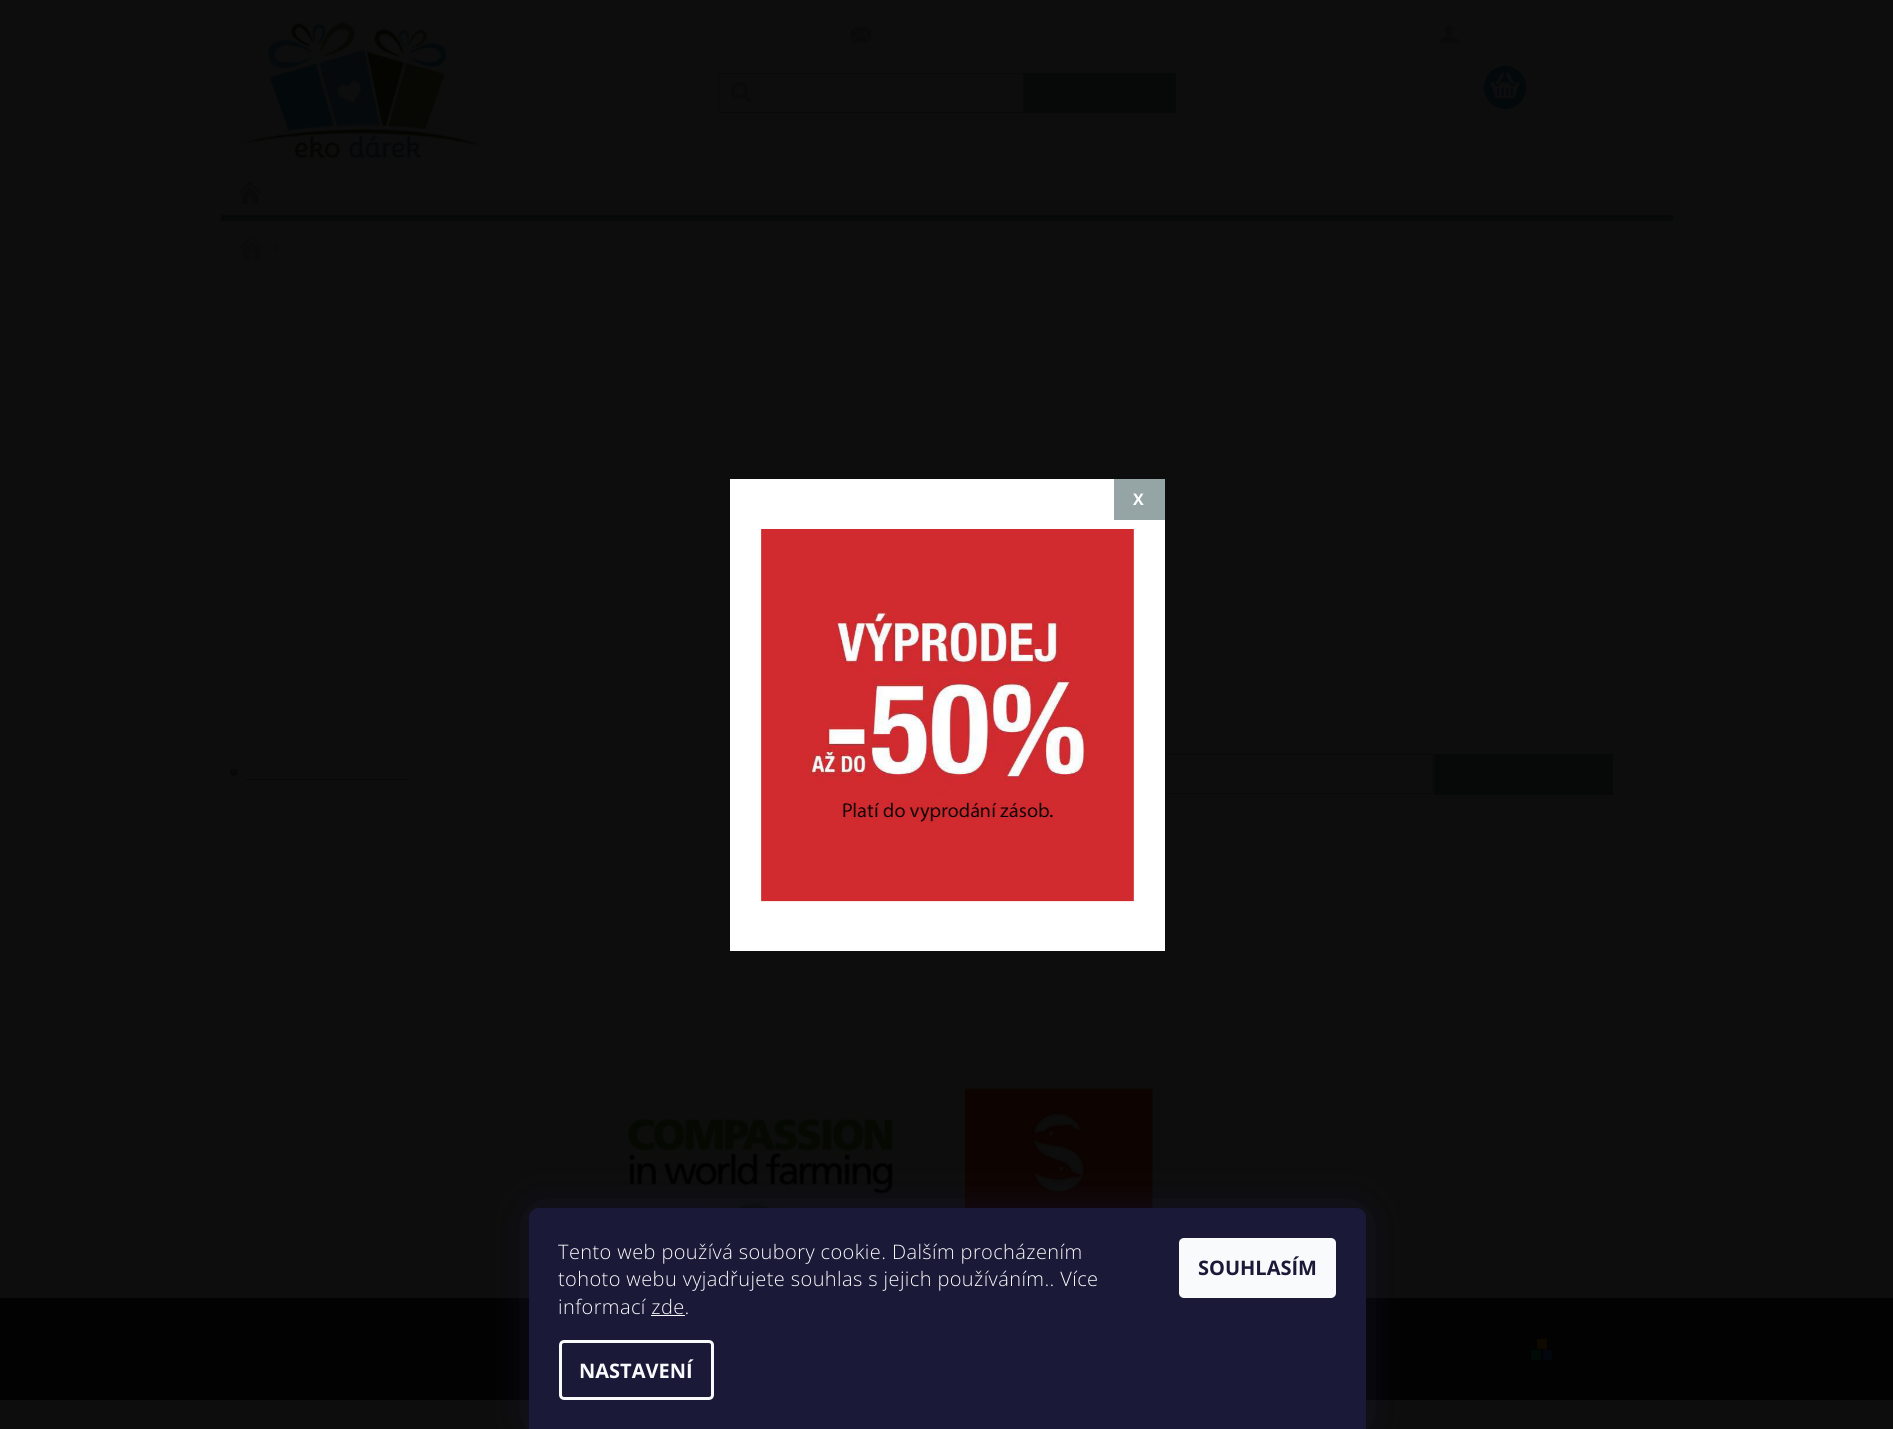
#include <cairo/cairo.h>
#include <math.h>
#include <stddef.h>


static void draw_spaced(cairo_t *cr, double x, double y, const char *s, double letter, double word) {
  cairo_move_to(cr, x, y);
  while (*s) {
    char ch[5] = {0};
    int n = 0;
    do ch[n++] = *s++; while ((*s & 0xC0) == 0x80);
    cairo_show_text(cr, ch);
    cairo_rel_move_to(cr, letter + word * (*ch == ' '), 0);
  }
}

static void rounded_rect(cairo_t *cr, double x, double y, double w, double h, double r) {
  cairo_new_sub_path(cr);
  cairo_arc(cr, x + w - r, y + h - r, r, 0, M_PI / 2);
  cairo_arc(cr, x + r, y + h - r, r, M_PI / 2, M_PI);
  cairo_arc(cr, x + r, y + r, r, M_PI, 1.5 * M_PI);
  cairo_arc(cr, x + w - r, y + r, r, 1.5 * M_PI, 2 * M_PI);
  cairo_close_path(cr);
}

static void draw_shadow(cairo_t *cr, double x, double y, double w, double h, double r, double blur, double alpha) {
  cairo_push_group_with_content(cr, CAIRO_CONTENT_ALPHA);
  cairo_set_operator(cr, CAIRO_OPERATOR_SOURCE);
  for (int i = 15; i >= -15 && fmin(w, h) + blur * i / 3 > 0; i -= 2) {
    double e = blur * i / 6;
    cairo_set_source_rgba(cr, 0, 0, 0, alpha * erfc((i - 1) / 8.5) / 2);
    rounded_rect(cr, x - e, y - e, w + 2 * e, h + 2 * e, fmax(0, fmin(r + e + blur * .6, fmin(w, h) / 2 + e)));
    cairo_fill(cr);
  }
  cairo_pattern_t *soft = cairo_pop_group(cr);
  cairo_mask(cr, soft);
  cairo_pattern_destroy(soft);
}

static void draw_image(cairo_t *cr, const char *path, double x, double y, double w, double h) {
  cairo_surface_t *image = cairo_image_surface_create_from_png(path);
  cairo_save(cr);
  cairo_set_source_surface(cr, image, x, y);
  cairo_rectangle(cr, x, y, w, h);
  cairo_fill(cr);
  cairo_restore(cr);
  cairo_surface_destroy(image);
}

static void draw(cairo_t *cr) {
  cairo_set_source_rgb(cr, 13 / 255.0, 13 / 255.0, 13 / 255.0);
  cairo_paint(cr);
  cairo_set_source_rgb(cr, 7 / 255.0, 8 / 255.0, 8 / 255.0);
  cairo_rectangle(cr, 221, 215, 1452, 6);
  cairo_fill(cr);
  draw_image(cr, "images/1.png", 239, 21, 240, 137);
  draw_image(cr, "images/2.png", 851, 27, 21, 16);
  draw_image(cr, "images/3.png", 731, 82, 21, 21);
  cairo_rectangle(cr, 718.5, 73.5, 305, 39);
  cairo_set_source_rgb(cr, 10 / 255.0, 10 / 255.0, 10 / 255.0);
  cairo_set_line_width(cr, 1);
  cairo_stroke(cr);
  cairo_set_source_rgb(cr, 7 / 255.0, 8 / 255.0, 8 / 255.0);
  cairo_rectangle(cr, 1024, 73, 152, 40);
  cairo_fill(cr);
  draw_image(cr, "images/4.png", 1438, 24, 21, 19);
  cairo_set_source_rgb(cr, 3 / 255.0, 8 / 255.0, 11 / 255.0);
  rounded_rect(cr, 1484, 66, 42, 43, 21);
  cairo_fill(cr);
  draw_image(cr, "images/5.png", 1490, 72, 30, 27);
  draw_image(cr, "images/6.png", 238, 181, 24, 23);
  draw_image(cr, "images/7.png", 239, 236, 25, 24);
  draw_image(cr, "images/8.png", 273, 245, 6, 7);
  cairo_set_source_rgb(cr, 7 / 255.0, 8 / 255.0, 8 / 255.0);
  rounded_rect(cr, 230, 769, 8, 7, 3.5);
  cairo_fill(cr);
  cairo_rectangle(cr, 246, 779, 163, 1);
  cairo_fill(cr);
  cairo_rectangle(cr, 956.5, 754.5, 476, 39);
  cairo_set_source_rgb(cr, 10 / 255.0, 10 / 255.0, 10 / 255.0);
  cairo_stroke(cr);
  cairo_set_source_rgb(cr, 7 / 255.0, 8 / 255.0, 8 / 255.0);
  cairo_rectangle(cr, 1434, 754, 179, 41);
  cairo_fill(cr);
  draw_image(cr, "images/9.png", 594, 1089, 333, 119);
  draw_image(cr, "images/10.png", 965, 1088, 188, 120);
  cairo_set_source_rgb(cr, 2 / 255.0, 2 / 255.0, 2 / 255.0);
  cairo_rectangle(cr, 0, 1298, 1893, 102);
  cairo_fill(cr);
  cairo_set_source_rgb(cr, 13 / 255.0, 9 / 255.0, 0);
  cairo_rectangle(cr, 1537, 1339, 10, 10);
  cairo_fill(cr);
  cairo_set_source_rgb(cr, 0, 11 / 255.0, 5 / 255.0);
  cairo_rectangle(cr, 1531, 1350, 10, 10);
  cairo_fill(cr);
  cairo_set_source_rgb(cr, 3 / 255.0, 7 / 255.0, 13 / 255.0);
  cairo_rectangle(cr, 1543, 1350, 9, 10);
  cairo_fill(cr);
  cairo_set_source_rgb(cr, 1, 1, 1);
  cairo_rectangle(cr, 730, 479, 435, 472);
  cairo_fill(cr);
  cairo_set_source_rgb(cr, 149 / 255.0, 165 / 255.0, 166 / 255.0);
  cairo_rectangle(cr, 1114, 479, 51, 41);
  cairo_fill(cr);
  draw_image(cr, "images/11.png", 761, 529, 373, 373);
  cairo_set_source_rgb(cr, 27 / 255.0, 25 / 255.0, 57 / 255.0);
  draw_shadow(cr, 529, 1208, 837, 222, 10, 19, 0.5);
  cairo_set_source_rgb(cr, 26 / 255.0, 25 / 255.0, 55 / 255.0);
  cairo_new_path(cr);
  cairo_move_to(cr, 539, 1208);
  cairo_line_to(cr, 1356, 1208);
  cairo_curve_to(cr, 1361.5, 1208, 1366, 1212.5, 1366, 1218);
  cairo_line_to(cr, 1366, 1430);
  cairo_line_to(cr, 529, 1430);
  cairo_line_to(cr, 529, 1218);
  cairo_curve_to(cr, 529, 1212.5, 533.5, 1208, 539, 1208);
  cairo_close_path(cr);
  cairo_fill(cr);
  cairo_set_source_rgb(cr, 248 / 255.0, 250 / 255.0, 251 / 255.0);
  cairo_rectangle(cr, 651, 1315, 34, 1);
  cairo_fill(cr);
  rounded_rect(cr, 560.5, 1341.5, 152, 57, 3.5);
  cairo_set_line_width(cr, 3);
  cairo_stroke(cr);
  rounded_rect(cr, 1179, 1238, 157, 60, 5);
  cairo_fill(cr);
  cairo_select_font_face(cr, "Open Sans", CAIRO_FONT_SLANT_NORMAL, CAIRO_FONT_WEIGHT_BOLD);
  cairo_set_font_size(cr, 16);
  cairo_set_source_rgb(cr, 1, 1, 1);
  draw_spaced(cr, 1133, 505, "X", 0.4, 0);
  cairo_select_font_face(cr, "Open Sans Light", CAIRO_FONT_SLANT_NORMAL, CAIRO_FONT_WEIGHT_NORMAL);
  cairo_set_font_size(cr, 20);
  cairo_set_source_rgb(cr, 248 / 255.0, 250 / 255.0, 251 / 255.0);
  draw_spaced(cr, 558, 1259, "Tento web používá soubory cookie. Dalším procházením", 0.4, 0);
  draw_spaced(cr, 558, 1286, "tohoto webu vyjadřujete souhlas s jejich používáním.. Více", 0.4, 0);
  draw_spaced(cr, 558, 1314, "informací zde.", 0.4, 0);
  cairo_select_font_face(cr, "Open Sans", CAIRO_FONT_SLANT_NORMAL, CAIRO_FONT_WEIGHT_BOLD);
  cairo_move_to(cr, 579, 1378);
  cairo_show_text(cr, "NASTAVENÍ");
  cairo_set_source_rgb(cr, 26 / 255.0, 25 / 255.0, 55 / 255.0);
  cairo_move_to(cr, 1198, 1275);
  cairo_show_text(cr, "SOUHLASÍM");
}

int main(void) {
  cairo_surface_t *surface = cairo_image_surface_create(CAIRO_FORMAT_RGB24, 1893, 1429);
  cairo_t *cr = cairo_create(surface);
  cairo_font_options_t *options = cairo_font_options_create();
  cairo_font_options_set_hint_metrics(options, CAIRO_HINT_METRICS_OFF);
  cairo_font_options_set_hint_style(options, CAIRO_HINT_STYLE_NONE);
  cairo_set_font_options(cr, options);
  cairo_set_miter_limit(cr, 4);
  draw(cr);
  cairo_surface_write_to_png(surface, "out.png");
  cairo_font_options_destroy(options);
  cairo_destroy(cr);
  cairo_surface_destroy(surface);
  return 0;
}
